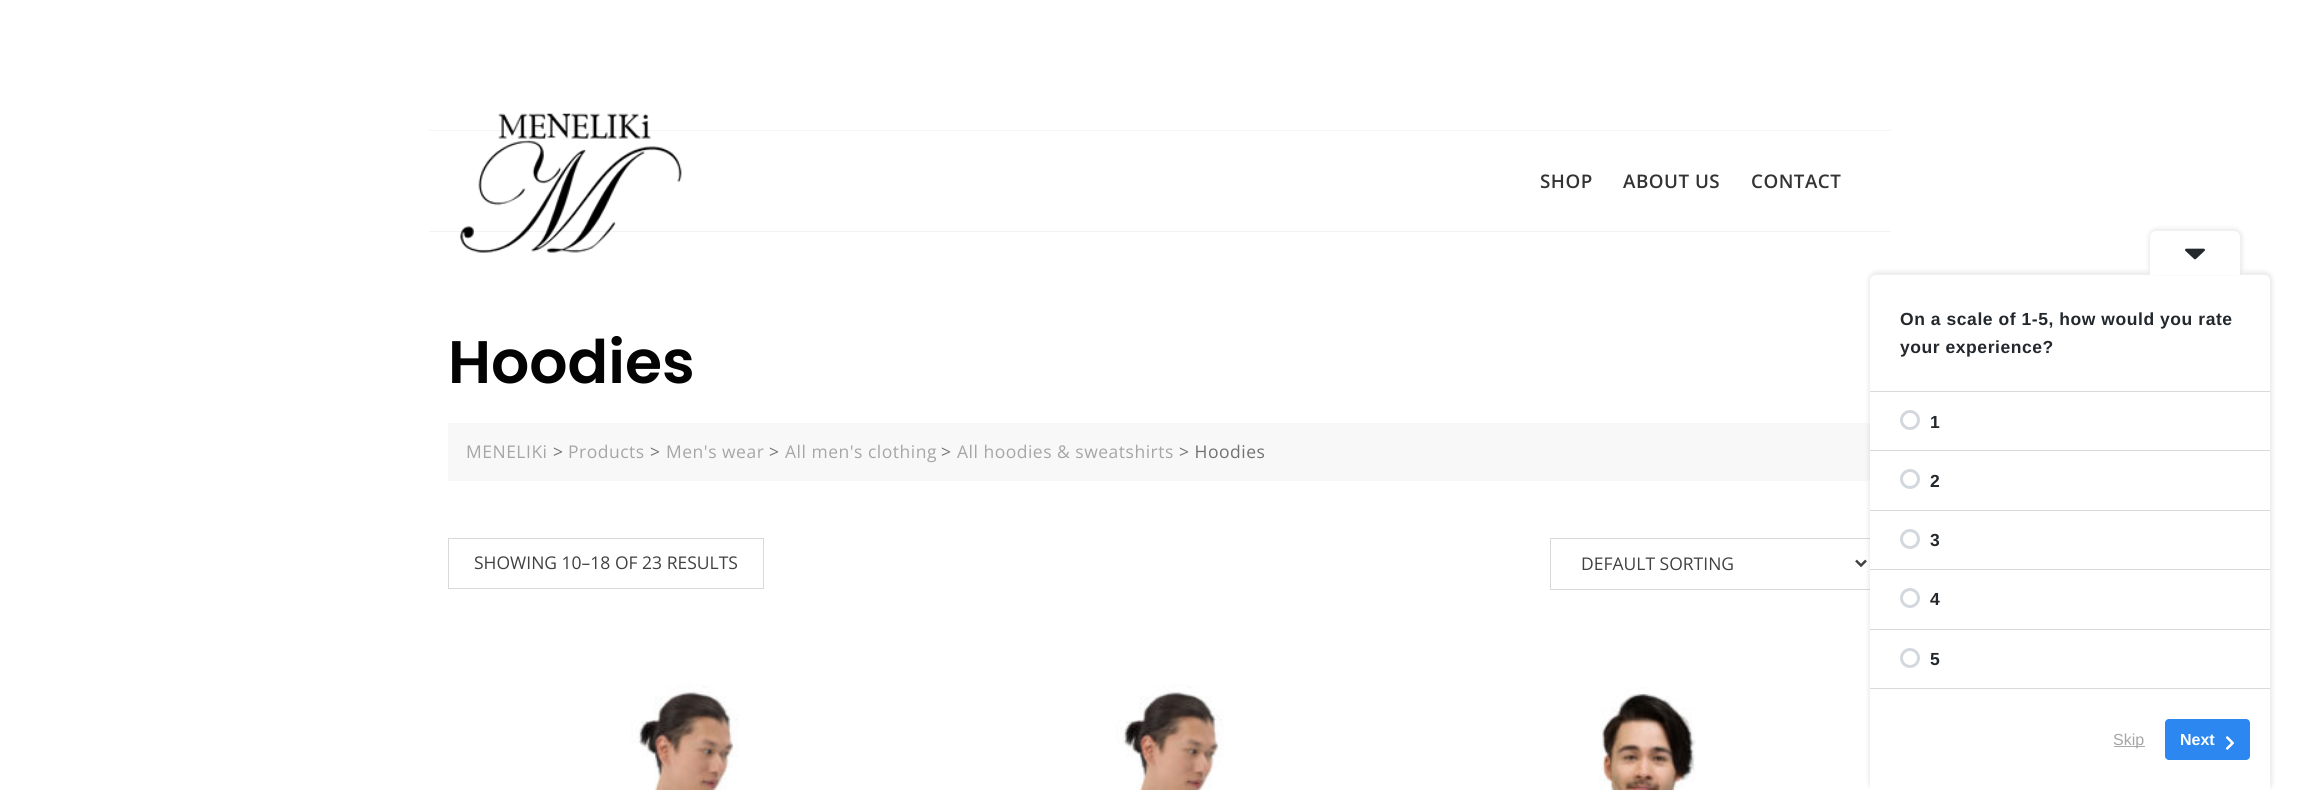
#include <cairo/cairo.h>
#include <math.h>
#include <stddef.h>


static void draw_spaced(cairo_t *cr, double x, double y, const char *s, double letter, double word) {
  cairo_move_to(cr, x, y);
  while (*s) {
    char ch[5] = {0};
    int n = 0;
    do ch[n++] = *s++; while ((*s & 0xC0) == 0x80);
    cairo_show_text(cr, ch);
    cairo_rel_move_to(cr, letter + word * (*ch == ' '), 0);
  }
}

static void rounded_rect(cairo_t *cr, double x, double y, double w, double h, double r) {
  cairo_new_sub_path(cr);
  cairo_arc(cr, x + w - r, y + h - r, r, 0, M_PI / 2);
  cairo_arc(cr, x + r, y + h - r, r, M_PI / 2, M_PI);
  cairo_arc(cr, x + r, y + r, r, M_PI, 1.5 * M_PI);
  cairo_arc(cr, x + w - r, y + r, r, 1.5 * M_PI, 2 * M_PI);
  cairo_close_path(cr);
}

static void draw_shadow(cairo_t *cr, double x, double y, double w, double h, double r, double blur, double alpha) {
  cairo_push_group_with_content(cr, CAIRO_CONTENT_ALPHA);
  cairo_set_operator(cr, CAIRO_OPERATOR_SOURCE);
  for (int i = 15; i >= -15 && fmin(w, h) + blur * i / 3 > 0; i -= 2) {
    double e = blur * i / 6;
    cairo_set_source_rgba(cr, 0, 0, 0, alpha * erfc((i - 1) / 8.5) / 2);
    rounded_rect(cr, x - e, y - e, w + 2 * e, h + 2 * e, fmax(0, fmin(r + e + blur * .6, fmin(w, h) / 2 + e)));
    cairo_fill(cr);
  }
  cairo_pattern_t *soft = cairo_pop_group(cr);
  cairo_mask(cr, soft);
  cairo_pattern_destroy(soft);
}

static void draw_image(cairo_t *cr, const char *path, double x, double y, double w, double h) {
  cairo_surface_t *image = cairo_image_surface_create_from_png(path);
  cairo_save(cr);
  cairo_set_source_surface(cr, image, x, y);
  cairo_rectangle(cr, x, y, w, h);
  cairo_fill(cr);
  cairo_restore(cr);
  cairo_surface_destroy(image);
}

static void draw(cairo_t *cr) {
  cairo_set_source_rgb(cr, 1, 1, 1);
  cairo_paint(cr);
  cairo_set_source_rgb(cr, 245 / 255.0, 245 / 255.0, 245 / 255.0);
  cairo_rectangle(cr, 429, 130, 1462, 1);
  cairo_fill(cr);
  cairo_set_source_rgb(cr, 242 / 255.0, 242 / 255.0, 242 / 255.0);
  cairo_rectangle(cr, 429, 231, 1462, 1);
  cairo_fill(cr);
  draw_image(cr, "images/1.png", 459, 113, 223, 140);
  cairo_set_source_rgb(cr, 248 / 255.0, 248 / 255.0, 248 / 255.0);
  cairo_rectangle(cr, 448, 423, 1422, 58);
  cairo_fill(cr);
  cairo_rectangle(cr, 448.5, 538.5, 315, 50);
  cairo_set_source_rgb(cr, 217 / 255.0, 217 / 255.0, 217 / 255.0);
  cairo_set_line_width(cr, 1);
  cairo_stroke(cr);
  cairo_rectangle(cr, 1550.5, 538.5, 322, 51);
  cairo_stroke(cr);
  cairo_new_path(cr);
  cairo_move_to(cr, 1856, 560.5);
  cairo_line_to(cr, 1861, 565.5);
  cairo_line_to(cr, 1866, 560.5);
  cairo_set_source_rgb(cr, 65 / 255.0, 65 / 255.0, 65 / 255.0);
  cairo_set_line_width(cr, 2.5);
  cairo_stroke(cr);
  draw_image(cr, "images/2.png", 631, 684, 108, 106);
  draw_image(cr, "images/3.png", 1116, 684, 108, 106);
  draw_image(cr, "images/4.png", 1599, 687, 97, 103);
  cairo_set_source_rgb(cr, 0, 0, 0);
  draw_shadow(cr, 1868, 271, 405, 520, 9, 2, 0.07);
  cairo_set_source_rgb(cr, 1, 1, 1);
  cairo_new_path(cr);
  cairo_move_to(cr, 1876, 275);
  cairo_line_to(cr, 2264, 275);
  cairo_curve_to(cr, 2267.5, 275, 2270, 277.5, 2270, 281);
  cairo_line_to(cr, 2270, 790);
  cairo_line_to(cr, 1870, 790);
  cairo_line_to(cr, 1870, 281);
  cairo_curve_to(cr, 1870, 277.5, 1872.5, 275, 1876, 275);
  cairo_close_path(cr);
  cairo_fill(cr);
  cairo_save(cr);
  cairo_new_path(cr);
  cairo_move_to(cr, 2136.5, 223);
  cairo_line_to(cr, 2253.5, 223);
  cairo_line_to(cr, 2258, 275.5);
  cairo_line_to(cr, 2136.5, 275.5);
  cairo_close_path(cr);
  cairo_clip(cr);
  cairo_set_source_rgb(cr, 0, 0, 0);
  draw_shadow(cr, 2148, 228, 95, 48, 9, 2, 0.07);
  cairo_restore(cr);
  cairo_new_path(cr);
  cairo_move_to(cr, 2156, 231);
  cairo_line_to(cr, 2234, 231);
  cairo_curve_to(cr, 2237.5, 231, 2240, 233.5, 2240, 237);
  cairo_line_to(cr, 2240, 275);
  cairo_line_to(cr, 2150, 275);
  cairo_line_to(cr, 2150, 237);
  cairo_curve_to(cr, 2150, 233.5, 2152.5, 231, 2156, 231);
  cairo_close_path(cr);
  cairo_fill(cr);
  draw_image(cr, "images/5.png", 2185, 248, 20, 12);
  cairo_set_source_rgb(cr, 217 / 255.0, 217 / 255.0, 217 / 255.0);
  cairo_rectangle(cr, 1870, 391, 400, 1);
  cairo_fill(cr);
  cairo_rectangle(cr, 1870, 688, 400, 1);
  cairo_fill(cr);
  cairo_rectangle(cr, 1870, 450, 400, 1);
  cairo_fill(cr);
  cairo_arc(cr, 1910, 420, 8.5, 0, 2 * M_PI);
  cairo_set_source_rgb(cr, 211 / 255.0, 215 / 255.0, 222 / 255.0);
  cairo_set_line_width(cr, 3);
  cairo_stroke(cr);
  cairo_set_source_rgb(cr, 217 / 255.0, 217 / 255.0, 217 / 255.0);
  cairo_rectangle(cr, 1870, 510, 400, 1);
  cairo_fill(cr);
  cairo_arc(cr, 1910, 479, 8.5, 0, 2 * M_PI);
  cairo_set_source_rgb(cr, 211 / 255.0, 215 / 255.0, 222 / 255.0);
  cairo_stroke(cr);
  cairo_set_source_rgb(cr, 217 / 255.0, 217 / 255.0, 217 / 255.0);
  cairo_rectangle(cr, 1870, 569, 400, 1);
  cairo_fill(cr);
  cairo_arc(cr, 1910, 539, 8.5, 0, 2 * M_PI);
  cairo_set_source_rgb(cr, 211 / 255.0, 215 / 255.0, 222 / 255.0);
  cairo_stroke(cr);
  cairo_set_source_rgb(cr, 217 / 255.0, 217 / 255.0, 217 / 255.0);
  cairo_rectangle(cr, 1870, 629, 400, 1);
  cairo_fill(cr);
  cairo_arc(cr, 1910, 598, 8.5, 0, 2 * M_PI);
  cairo_set_source_rgb(cr, 211 / 255.0, 215 / 255.0, 222 / 255.0);
  cairo_stroke(cr);
  cairo_arc(cr, 1910, 658, 8.5, 0, 2 * M_PI);
  cairo_stroke(cr);
  cairo_set_source_rgb(cr, 170 / 255.0, 170 / 255.0, 170 / 255.0);
  cairo_rectangle(cr, 2114, 746, 31, 1);
  cairo_fill(cr);
  cairo_set_source_rgb(cr, 45 / 255.0, 135 / 255.0, 241 / 255.0);
  rounded_rect(cr, 2165, 719, 85, 41, 4);
  cairo_fill(cr);
  draw_image(cr, "images/6.png", 2225, 736, 9, 14);
  cairo_select_font_face(cr, "Open Sans SemiBold", CAIRO_FONT_SLANT_NORMAL, CAIRO_FONT_WEIGHT_NORMAL);
  cairo_set_font_size(cr, 18.75);
  cairo_set_source_rgb(cr, 51 / 255.0, 51 / 255.0, 51 / 255.0);
  draw_spaced(cr, 1540, 188, "SHOP", 0.5, 0);
  draw_spaced(cr, 1623, 188, "ABOUT US", 0.5, 0);
  draw_spaced(cr, 1751, 188, "CONTACT", 0.5, 0);
  cairo_select_font_face(cr, "Poppins SemiBold", CAIRO_FONT_SLANT_NORMAL, CAIRO_FONT_WEIGHT_NORMAL);
  cairo_set_font_size(cr, 60);
  cairo_set_source_rgb(cr, 3 / 255.0, 3 / 255.0, 3 / 255.0);
  cairo_move_to(cr, 448, 383);
  cairo_show_text(cr, "Hoodies");
  cairo_select_font_face(cr, "Open Sans", CAIRO_FONT_SLANT_NORMAL, CAIRO_FONT_WEIGHT_NORMAL);
  cairo_set_font_size(cr, 17.5);
  cairo_set_source_rgb(cr, 166 / 255.0, 166 / 255.0, 166 / 255.0);
  draw_spaced(cr, 466, 458, "MENELIKi", 0.5, 0);
  cairo_set_source_rgb(cr, 113 / 255.0, 113 / 255.0, 113 / 255.0);
  draw_spaced(cr, 553, 458, ">", 0.5, 0);
  cairo_set_source_rgb(cr, 166 / 255.0, 166 / 255.0, 166 / 255.0);
  draw_spaced(cr, 568, 458, "Products", 0.5, 0);
  cairo_set_source_rgb(cr, 113 / 255.0, 113 / 255.0, 113 / 255.0);
  draw_spaced(cr, 650, 458, ">", 0.5, 0);
  cairo_set_source_rgb(cr, 166 / 255.0, 166 / 255.0, 166 / 255.0);
  draw_spaced(cr, 666, 458, "Men's wear", 0.5, 0);
  cairo_set_source_rgb(cr, 113 / 255.0, 113 / 255.0, 113 / 255.0);
  draw_spaced(cr, 769, 458, ">", 0.5, 0);
  cairo_set_source_rgb(cr, 166 / 255.0, 166 / 255.0, 166 / 255.0);
  draw_spaced(cr, 785, 458, "All men's clothing", 0.5, 0);
  cairo_set_source_rgb(cr, 113 / 255.0, 113 / 255.0, 113 / 255.0);
  draw_spaced(cr, 941, 458, ">", 0.5, 0);
  cairo_set_source_rgb(cr, 166 / 255.0, 166 / 255.0, 166 / 255.0);
  draw_spaced(cr, 957, 458, "All hoodies & sweatshirts", 0.5, 0);
  cairo_set_source_rgb(cr, 113 / 255.0, 113 / 255.0, 113 / 255.0);
  draw_spaced(cr, 1179, 458, "> Hoodies", 0.5, 0);
  cairo_set_source_rgb(cr, 65 / 255.0, 65 / 255.0, 65 / 255.0);
  cairo_move_to(cr, 474, 569);
  cairo_show_text(cr, "SHOWING 10–18 OF 23 RESULTS");
  cairo_move_to(cr, 1581, 570);
  cairo_show_text(cr, "DEFAULT SORTING");
  cairo_select_font_face(cr, "Liberation Sans", CAIRO_FONT_SLANT_NORMAL, CAIRO_FONT_WEIGHT_BOLD);
  cairo_set_source_rgb(cr, 35 / 255.0, 40 / 255.0, 45 / 255.0);
  draw_spaced(cr, 1900, 325, "On a scale of 1-5, how would you rate", 0.55, 0);
  draw_spaced(cr, 1900, 353, "your experience?", 0.55, 0);
  cairo_move_to(cr, 1930, 428);
  cairo_show_text(cr, "1");
  cairo_move_to(cr, 1930, 487);
  cairo_show_text(cr, "2");
  cairo_move_to(cr, 1930, 546);
  cairo_show_text(cr, "3");
  cairo_move_to(cr, 1930, 605);
  cairo_show_text(cr, "4");
  cairo_move_to(cr, 1930, 665);
  cairo_show_text(cr, "5");
  cairo_select_font_face(cr, "Liberation Sans", CAIRO_FONT_SLANT_NORMAL, CAIRO_FONT_WEIGHT_NORMAL);
  cairo_set_font_size(cr, 16);
  cairo_set_source_rgb(cr, 166 / 255.0, 166 / 255.0, 166 / 255.0);
  cairo_move_to(cr, 2113, 745);
  cairo_show_text(cr, "Skip");
  cairo_select_font_face(cr, "Liberation Sans", CAIRO_FONT_SLANT_NORMAL, CAIRO_FONT_WEIGHT_BOLD);
  cairo_set_source_rgb(cr, 1, 1, 1);
  cairo_move_to(cr, 2180, 745);
  cairo_show_text(cr, "Next");
}

int main(void) {
  cairo_surface_t *surface = cairo_image_surface_create(CAIRO_FORMAT_RGB24, 2319, 790);
  cairo_t *cr = cairo_create(surface);
  cairo_font_options_t *options = cairo_font_options_create();
  cairo_font_options_set_hint_metrics(options, CAIRO_HINT_METRICS_OFF);
  cairo_font_options_set_hint_style(options, CAIRO_HINT_STYLE_NONE);
  cairo_set_font_options(cr, options);
  cairo_set_miter_limit(cr, 4);
  draw(cr);
  cairo_surface_write_to_png(surface, "out.png");
  cairo_font_options_destroy(options);
  cairo_destroy(cr);
  cairo_surface_destroy(surface);
  return 0;
}
